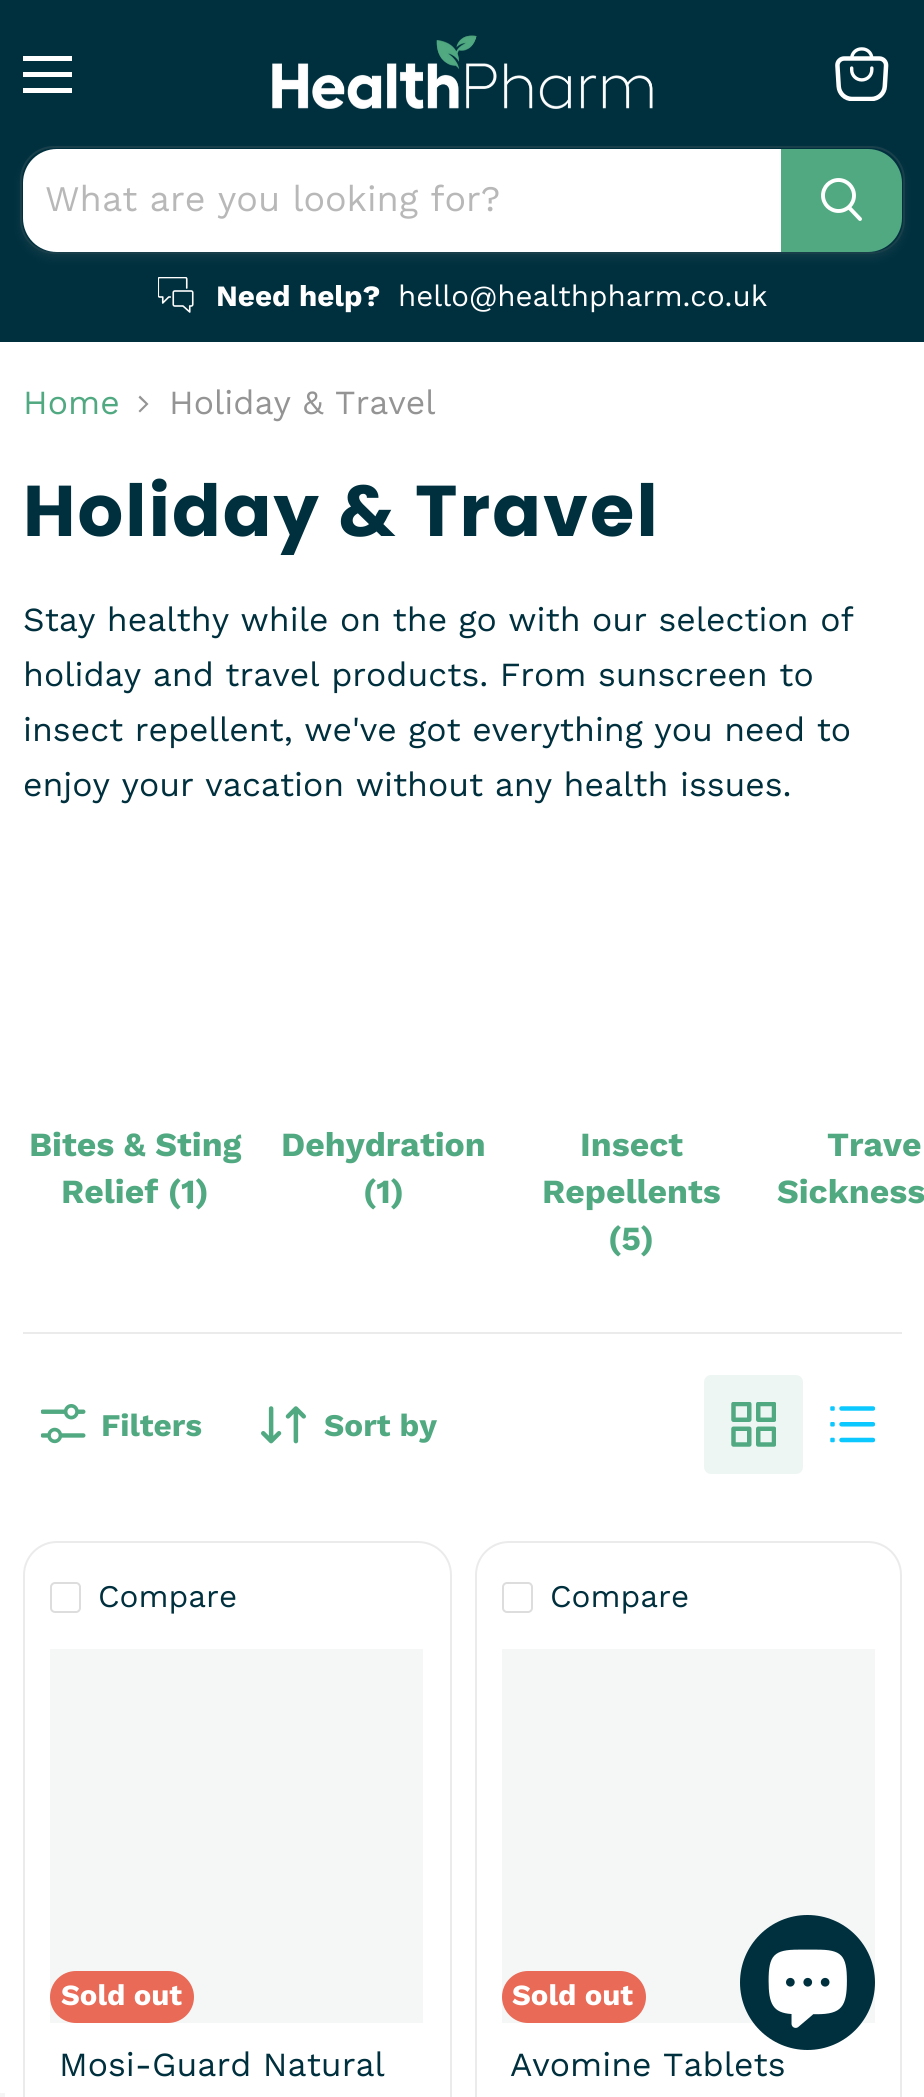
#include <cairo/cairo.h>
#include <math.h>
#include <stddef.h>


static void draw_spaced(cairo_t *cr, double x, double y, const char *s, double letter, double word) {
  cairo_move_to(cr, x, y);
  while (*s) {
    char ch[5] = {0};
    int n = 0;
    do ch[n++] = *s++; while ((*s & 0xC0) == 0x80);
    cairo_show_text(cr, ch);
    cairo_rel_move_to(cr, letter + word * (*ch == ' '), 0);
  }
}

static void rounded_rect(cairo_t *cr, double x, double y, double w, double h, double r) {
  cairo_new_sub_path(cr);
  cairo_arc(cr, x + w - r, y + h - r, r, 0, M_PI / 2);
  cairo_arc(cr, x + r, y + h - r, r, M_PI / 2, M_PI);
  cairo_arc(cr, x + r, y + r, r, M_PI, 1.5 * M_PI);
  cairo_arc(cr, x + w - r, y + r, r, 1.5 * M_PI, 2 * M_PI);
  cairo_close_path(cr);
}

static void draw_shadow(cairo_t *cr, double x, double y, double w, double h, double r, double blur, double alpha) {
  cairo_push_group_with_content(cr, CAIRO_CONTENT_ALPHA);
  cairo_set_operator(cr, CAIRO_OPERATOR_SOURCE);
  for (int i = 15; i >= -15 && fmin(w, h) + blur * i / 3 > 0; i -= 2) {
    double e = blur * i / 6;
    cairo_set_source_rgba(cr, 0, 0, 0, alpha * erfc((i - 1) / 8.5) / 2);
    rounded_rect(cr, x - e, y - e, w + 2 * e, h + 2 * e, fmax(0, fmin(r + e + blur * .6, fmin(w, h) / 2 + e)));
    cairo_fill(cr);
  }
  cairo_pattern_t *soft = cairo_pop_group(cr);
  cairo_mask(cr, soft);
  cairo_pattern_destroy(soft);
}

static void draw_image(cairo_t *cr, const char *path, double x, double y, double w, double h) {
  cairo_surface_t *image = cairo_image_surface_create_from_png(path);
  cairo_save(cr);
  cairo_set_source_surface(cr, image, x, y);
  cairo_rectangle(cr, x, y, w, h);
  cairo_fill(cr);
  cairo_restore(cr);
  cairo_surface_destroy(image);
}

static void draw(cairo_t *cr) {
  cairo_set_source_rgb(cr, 1, 1, 1);
  cairo_paint(cr);
  cairo_set_source_rgb(cr, 0, 48 / 255.0, 62 / 255.0);
  cairo_rectangle(cr, 0, 0, 924, 342);
  cairo_fill(cr);
  cairo_set_source_rgb(cr, 1, 1, 1);
  cairo_rectangle(cr, 23, 56, 49, 5);
  cairo_fill(cr);
  cairo_rectangle(cr, 23, 72, 49, 5);
  cairo_fill(cr);
  cairo_rectangle(cr, 23, 88, 49, 5);
  cairo_fill(cr);
  draw_image(cr, "images/1.png", 835, 47, 54, 54);
  draw_image(cr, "images/2.png", 272, 35, 381, 74);
  cairo_save(cr);
  cairo_set_fill_rule(cr, CAIRO_FILL_RULE_EVEN_ODD);
  cairo_new_path(cr);
  cairo_move_to(cr, 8, 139);
  cairo_line_to(cr, 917, 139);
  cairo_line_to(cr, 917, 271);
  cairo_line_to(cr, 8, 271);
  cairo_close_path(cr);
  cairo_move_to(cr, 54, 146);
  cairo_line_to(cr, 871, 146);
  cairo_curve_to(cr, 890, 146, 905, 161, 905, 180);
  cairo_line_to(cr, 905, 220);
  cairo_curve_to(cr, 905, 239, 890, 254, 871, 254);
  cairo_line_to(cr, 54, 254);
  cairo_curve_to(cr, 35, 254, 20, 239, 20, 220);
  cairo_line_to(cr, 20, 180);
  cairo_curve_to(cr, 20, 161, 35, 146, 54, 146);
  cairo_close_path(cr);
  cairo_clip(cr);
  cairo_set_source_rgb(cr, 128 / 255.0, 128 / 255.0, 128 / 255.0);
  draw_shadow(cr, 20, 151, 885, 108, 34, 3.5, 0.11);
  cairo_restore(cr);
  rounded_rect(cr, 21, 147, 883, 106, 33);
  cairo_set_source_rgba(cr, 128 / 255.0, 128 / 255.0, 128 / 255.0, 0.2);
  cairo_stroke(cr);
  cairo_set_source_rgb(cr, 1, 1, 1);
  cairo_new_path(cr);
  cairo_move_to(cr, 57, 149);
  cairo_line_to(cr, 781, 149);
  cairo_line_to(cr, 781, 252);
  cairo_line_to(cr, 57, 252);
  cairo_curve_to(cr, 38, 252, 23, 237, 23, 218);
  cairo_line_to(cr, 23, 183);
  cairo_curve_to(cr, 23, 164, 38, 149, 57, 149);
  cairo_close_path(cr);
  cairo_fill(cr);
  cairo_set_source_rgb(cr, 81 / 255.0, 169 / 255.0, 130 / 255.0);
  cairo_new_path(cr);
  cairo_move_to(cr, 782, 150);
  cairo_line_to(cr, 868, 150);
  cairo_curve_to(cr, 886, 150, 901, 165, 901, 183);
  cairo_line_to(cr, 901, 218);
  cairo_curve_to(cr, 901, 236, 886, 251, 868, 251);
  cairo_line_to(cr, 782, 251);
  cairo_close_path(cr);
  cairo_fill_preserve(cr);
  cairo_stroke(cr);
  cairo_new_path(cr);
  cairo_move_to(cr, 860, 219);
  cairo_line_to(cr, 849.5, 208);
  cairo_set_source_rgb(cr, 1, 1, 1);
  cairo_set_line_width(cr, 3.9);
  cairo_set_line_cap(cr, CAIRO_LINE_CAP_ROUND);
  cairo_stroke(cr);
  cairo_arc(cr, 838.5, 195.5, 15.5, 0, 2 * M_PI);
  cairo_set_line_cap(cr, CAIRO_LINE_CAP_BUTT);
  cairo_stroke(cr);
  draw_image(cr, "images/3.png", 158, 277, 36, 36);
  cairo_set_source_rgb(cr, 148 / 255.0, 148 / 255.0, 148 / 255.0);
  cairo_set_fill_rule(cr, CAIRO_FILL_RULE_EVEN_ODD);
  cairo_new_path(cr);
  cairo_move_to(cr, 138.5, 411);
  cairo_line_to(cr, 140, 412.5);
  cairo_line_to(cr, 148.5, 404);
  cairo_line_to(cr, 140, 395.5);
  cairo_line_to(cr, 138.5, 397.5);
  cairo_line_to(cr, 145.5, 404);
  cairo_close_path(cr);
  cairo_fill(cr);
  cairo_set_source_rgb(cr, 235 / 255.0, 235 / 255.0, 235 / 255.0);
  cairo_rectangle(cr, 23, 1332, 879, 2);
  cairo_fill(cr);
  draw_image(cr, "images/4.png", 41, 1404, 45, 40);
  draw_image(cr, "images/5.png", 261, 1406, 45, 38);
  cairo_set_source_rgb(cr, 238 / 255.0, 246 / 255.0, 243 / 255.0);
  rounded_rect(cr, 704, 1375, 99, 99, 7);
  cairo_fill(cr);
  draw_image(cr, "images/6.png", 731, 1402, 45, 45);
  draw_image(cr, "images/7.png", 830, 1406, 45, 37);
  rounded_rect(cr, 24, 1542, 427, 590, 33);
  cairo_set_source_rgb(cr, 235 / 255.0, 235 / 255.0, 235 / 255.0);
  cairo_set_line_width(cr, 2);
  cairo_stroke(cr);
  rounded_rect(cr, 51, 1583, 29, 29, 4);
  cairo_set_source_rgb(cr, 221 / 255.0, 221 / 255.0, 221 / 255.0);
  cairo_stroke(cr);
  cairo_set_source_rgb(cr, 245 / 255.0, 247 / 255.0, 247 / 255.0);
  cairo_rectangle(cr, 50, 1649, 373, 374);
  cairo_fill(cr);
  cairo_set_source_rgb(cr, 233 / 255.0, 106 / 255.0, 86 / 255.0);
  rounded_rect(cr, 50, 1971, 144, 52, 26);
  cairo_fill(cr);
  rounded_rect(cr, 476, 1542, 425, 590, 33);
  cairo_set_source_rgb(cr, 235 / 255.0, 235 / 255.0, 235 / 255.0);
  cairo_stroke(cr);
  rounded_rect(cr, 503, 1583, 29, 29, 4);
  cairo_set_source_rgb(cr, 221 / 255.0, 221 / 255.0, 221 / 255.0);
  cairo_stroke(cr);
  cairo_set_source_rgb(cr, 245 / 255.0, 247 / 255.0, 247 / 255.0);
  cairo_rectangle(cr, 502, 1649, 373, 374);
  cairo_fill(cr);
  cairo_set_source_rgb(cr, 233 / 255.0, 106 / 255.0, 86 / 255.0);
  rounded_rect(cr, 502, 1971, 144, 52, 26);
  cairo_fill(cr);
  cairo_set_source_rgb(cr, 0, 48 / 255.0, 62 / 255.0);
  cairo_arc(cr, 807.5, 1982.5, 67.5, 0, 2 * M_PI);
  cairo_fill(cr);
  draw_image(cr, "images/8.png", 768, 1949, 79, 79);
  cairo_set_source_rgb(cr, 245 / 255.0, 245 / 255.0, 245 / 255.0);
  cairo_rectangle(cr, 0, 2093, 5, 4);
  cairo_fill(cr);
  cairo_select_font_face(cr, "Work Sans", CAIRO_FONT_SLANT_NORMAL, CAIRO_FONT_WEIGHT_NORMAL);
  cairo_set_font_size(cr, 36);
  cairo_set_source_rgb(cr, 184 / 255.0, 184 / 255.0, 184 / 255.0);
  cairo_move_to(cr, 45, 211);
  cairo_show_text(cr, "What are you looking for?");
  cairo_select_font_face(cr, "Work Sans", CAIRO_FONT_SLANT_NORMAL, CAIRO_FONT_WEIGHT_BOLD);
  cairo_set_font_size(cr, 29.5);
  cairo_set_source_rgb(cr, 1, 1, 1);
  cairo_move_to(cr, 216, 306);
  cairo_show_text(cr, "Need help?");
  cairo_select_font_face(cr, "Work Sans", CAIRO_FONT_SLANT_NORMAL, CAIRO_FONT_WEIGHT_NORMAL);
  cairo_move_to(cr, 398, 306);
  cairo_show_text(cr, "hello@healthpharm.co.uk");
  cairo_set_font_size(cr, 33.75);
  cairo_set_source_rgb(cr, 81 / 255.0, 169 / 255.0, 130 / 255.0);
  cairo_move_to(cr, 23, 414);
  cairo_show_text(cr, "Home");
  cairo_set_source_rgb(cr, 148 / 255.0, 148 / 255.0, 148 / 255.0);
  cairo_move_to(cr, 169, 414);
  cairo_show_text(cr, "Holiday & Travel");
  cairo_select_font_face(cr, "Poppins", CAIRO_FONT_SLANT_NORMAL, CAIRO_FONT_WEIGHT_BOLD);
  cairo_set_font_size(cr, 71.75);
  cairo_set_source_rgb(cr, 0, 48 / 255.0, 62 / 255.0);
  draw_spaced(cr, 23, 536, "Holiday & Travel", 2.1, 0);
  cairo_select_font_face(cr, "Work Sans", CAIRO_FONT_SLANT_NORMAL, CAIRO_FONT_WEIGHT_NORMAL);
  cairo_set_font_size(cr, 33.75);
  cairo_move_to(cr, 23, 631);
  cairo_show_text(cr, "Stay healthy while on the go with our selection of");
  cairo_move_to(cr, 23, 686);
  cairo_show_text(cr, "holiday and travel products. From sunscreen to");
  cairo_move_to(cr, 23, 741);
  cairo_show_text(cr, "insect repellent, we've got everything you need to");
  cairo_move_to(cr, 23, 796);
  cairo_show_text(cr, "enjoy your vacation without any health issues.");
  cairo_select_font_face(cr, "Work Sans", CAIRO_FONT_SLANT_NORMAL, CAIRO_FONT_WEIGHT_BOLD);
  cairo_set_source_rgb(cr, 81 / 255.0, 169 / 255.0, 130 / 255.0);
  cairo_move_to(cr, 29, 1156);
  cairo_show_text(cr, "Bites & Sting");
  cairo_move_to(cr, 61, 1203);
  cairo_show_text(cr, "Relief (1)");
  cairo_move_to(cr, 281, 1156);
  cairo_show_text(cr, "Dehydration");
  cairo_move_to(cr, 363, 1203);
  cairo_show_text(cr, "(1)");
  cairo_move_to(cr, 580, 1156);
  cairo_show_text(cr, "Insect");
  cairo_move_to(cr, 542, 1203);
  cairo_show_text(cr, "Repellents");
  cairo_move_to(cr, 608, 1250);
  cairo_show_text(cr, "(5)");
  cairo_move_to(cr, 827, 1156);
  cairo_show_text(cr, "Trave");
  cairo_move_to(cr, 777, 1203);
  cairo_show_text(cr, "Sickness");
  cairo_set_font_size(cr, 31.5);
  cairo_move_to(cr, 101, 1436);
  cairo_show_text(cr, "Filters");
  cairo_move_to(cr, 324, 1436);
  cairo_show_text(cr, "Sort by");
  cairo_select_font_face(cr, "Work Sans", CAIRO_FONT_SLANT_NORMAL, CAIRO_FONT_WEIGHT_NORMAL);
  cairo_set_source_rgb(cr, 0, 48 / 255.0, 62 / 255.0);
  cairo_move_to(cr, 98, 1607);
  cairo_show_text(cr, "Compare");
  cairo_select_font_face(cr, "Work Sans", CAIRO_FONT_SLANT_NORMAL, CAIRO_FONT_WEIGHT_BOLD);
  cairo_set_font_size(cr, 29.25);
  cairo_set_source_rgb(cr, 1, 1, 1);
  cairo_move_to(cr, 61, 2005);
  cairo_show_text(cr, "Sold out");
  cairo_select_font_face(cr, "Work Sans", CAIRO_FONT_SLANT_NORMAL, CAIRO_FONT_WEIGHT_NORMAL);
  cairo_set_font_size(cr, 33.75);
  cairo_set_source_rgb(cr, 0, 48 / 255.0, 62 / 255.0);
  cairo_move_to(cr, 59, 2076);
  cairo_show_text(cr, "Mosi-Guard Natural");
  cairo_set_font_size(cr, 31.5);
  cairo_move_to(cr, 550, 1607);
  cairo_show_text(cr, "Compare");
  cairo_select_font_face(cr, "Work Sans", CAIRO_FONT_SLANT_NORMAL, CAIRO_FONT_WEIGHT_BOLD);
  cairo_set_font_size(cr, 29.25);
  cairo_set_source_rgb(cr, 1, 1, 1);
  cairo_move_to(cr, 512, 2005);
  cairo_show_text(cr, "Sold out");
  cairo_select_font_face(cr, "Work Sans", CAIRO_FONT_SLANT_NORMAL, CAIRO_FONT_WEIGHT_NORMAL);
  cairo_set_font_size(cr, 33.75);
  cairo_set_source_rgb(cr, 0, 48 / 255.0, 62 / 255.0);
  cairo_move_to(cr, 510, 2076);
  cairo_show_text(cr, "Avomine Tablets");
}

int main(void) {
  cairo_surface_t *surface = cairo_image_surface_create(CAIRO_FORMAT_RGB24, 924, 2097);
  cairo_t *cr = cairo_create(surface);
  cairo_font_options_t *options = cairo_font_options_create();
  cairo_font_options_set_hint_metrics(options, CAIRO_HINT_METRICS_OFF);
  cairo_font_options_set_hint_style(options, CAIRO_HINT_STYLE_NONE);
  cairo_set_font_options(cr, options);
  cairo_set_miter_limit(cr, 4);
  draw(cr);
  cairo_surface_write_to_png(surface, "out.png");
  cairo_font_options_destroy(options);
  cairo_destroy(cr);
  cairo_surface_destroy(surface);
  return 0;
}
